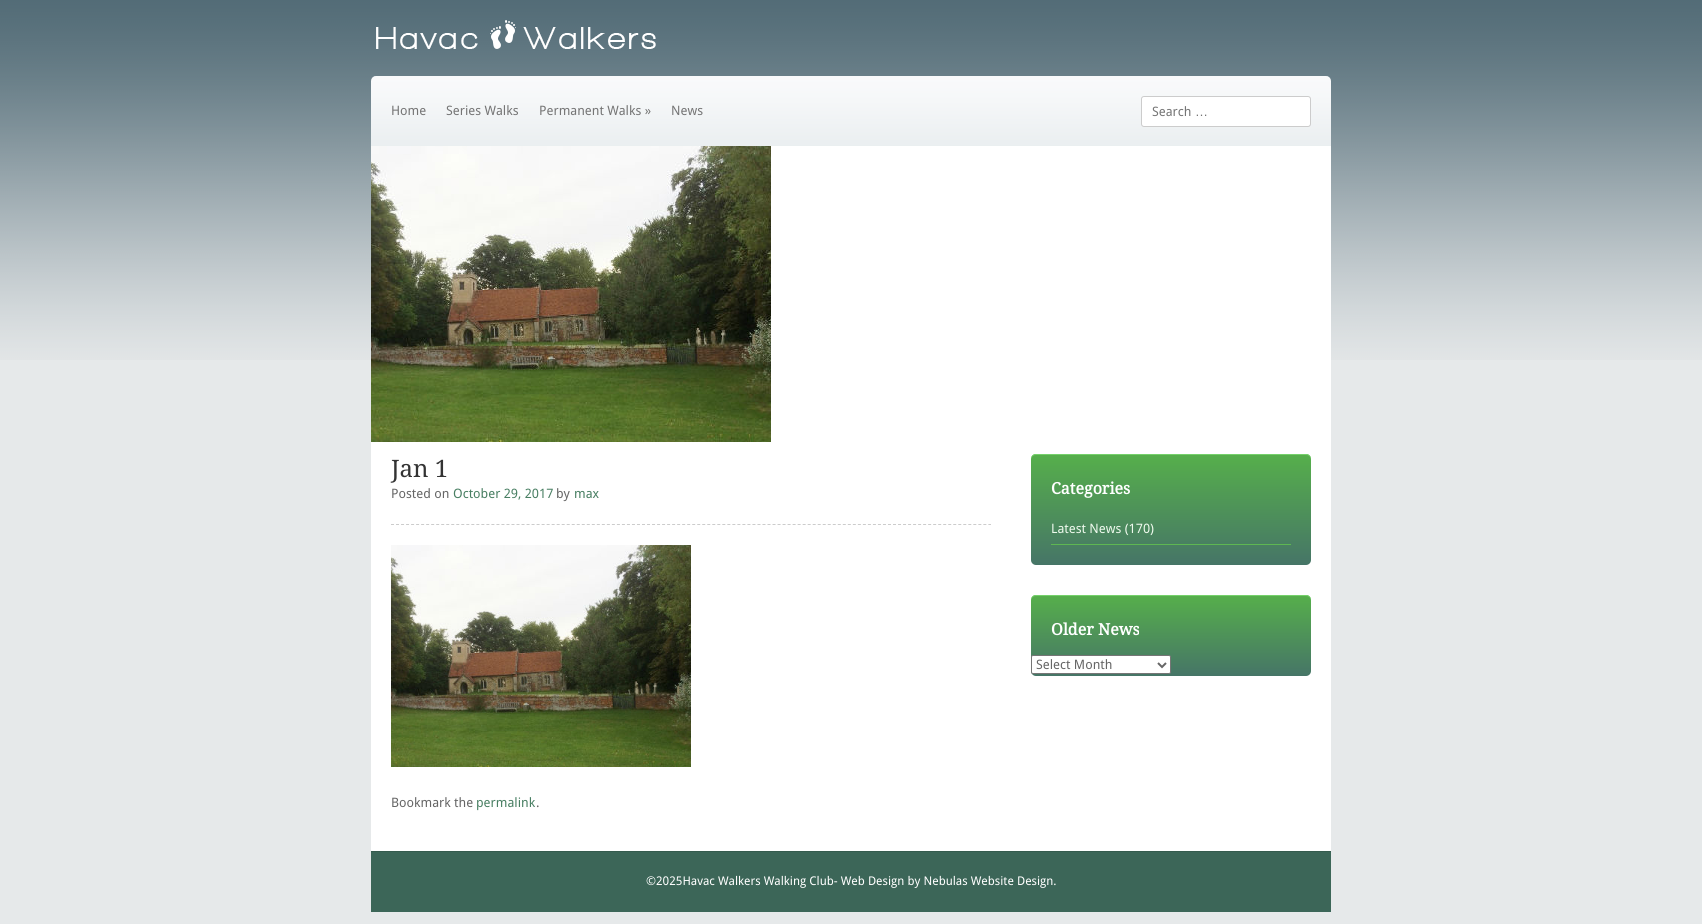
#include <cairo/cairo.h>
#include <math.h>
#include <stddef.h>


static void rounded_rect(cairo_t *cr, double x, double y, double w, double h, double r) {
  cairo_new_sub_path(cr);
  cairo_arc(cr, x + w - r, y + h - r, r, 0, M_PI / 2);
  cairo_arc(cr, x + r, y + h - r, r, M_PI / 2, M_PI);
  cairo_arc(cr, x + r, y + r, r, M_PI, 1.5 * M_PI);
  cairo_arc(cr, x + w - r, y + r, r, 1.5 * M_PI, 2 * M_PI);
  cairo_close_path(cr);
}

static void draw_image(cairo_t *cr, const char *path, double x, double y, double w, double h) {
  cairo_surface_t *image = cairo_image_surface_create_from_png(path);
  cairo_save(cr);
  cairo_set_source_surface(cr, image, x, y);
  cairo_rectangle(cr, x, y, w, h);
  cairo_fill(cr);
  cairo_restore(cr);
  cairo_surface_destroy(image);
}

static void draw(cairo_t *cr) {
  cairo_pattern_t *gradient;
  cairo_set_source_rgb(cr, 230 / 255.0, 233 / 255.0, 234 / 255.0);
  cairo_paint(cr);
  draw_image(cr, "images/1.png", 0, 0, 1702, 360);
  draw_image(cr, "images/2.png", 376, 20, 280, 29);
  draw_image(cr, "images/3.png", 371, 76, 960, 70);
  cairo_set_source_rgb(cr, 1, 1, 1);
  rounded_rect(cr, 1141.5, 96.5, 169, 30, 2.5);
  cairo_fill_preserve(cr);
  cairo_set_source_rgb(cr, 204 / 255.0, 204 / 255.0, 204 / 255.0);
  cairo_set_line_width(cr, 1);
  cairo_stroke(cr);
  cairo_set_source_rgb(cr, 1, 1, 1);
  cairo_rectangle(cr, 371, 146, 960, 705);
  cairo_fill(cr);
  draw_image(cr, "images/4.png", 371, 146, 400, 296);
  cairo_new_path(cr);
  cairo_move_to(cr, 391, 524.5);
  cairo_line_to(cr, 991, 524.5);
  cairo_set_source_rgb(cr, 204 / 255.0, 204 / 255.0, 204 / 255.0);
  cairo_set_dash(cr, (double[]){3, 2.02}, 2, 0);
  cairo_stroke(cr);
  draw_image(cr, "images/5.png", 391, 545, 300, 222);
  gradient = cairo_pattern_create_linear(1171, 565, 1171, 454);
  cairo_pattern_add_color_stop_rgba(gradient, 0, 70 / 255.0, 117 / 255.0, 103 / 255.0, 1);
  cairo_pattern_add_color_stop_rgba(gradient, 1, 86 / 255.0, 175 / 255.0, 75 / 255.0, 1);
  cairo_set_source(cr, gradient);
  cairo_pattern_destroy(gradient);
  rounded_rect(cr, 1031, 454, 280, 111, 5);
  cairo_fill(cr);
  cairo_set_source_rgb(cr, 117 / 255.0, 209 / 255.0, 107 / 255.0);
  cairo_new_path(cr);
  cairo_move_to(cr, 1036, 455);
  cairo_line_to(cr, 1306, 455);
  cairo_curve_to(cr, 1309, 455, 1311, 457, 1311, 460);
  cairo_line_to(cr, 1311, 459);
  cairo_curve_to(cr, 1311, 456, 1309, 454, 1306, 454);
  cairo_line_to(cr, 1036, 454);
  cairo_curve_to(cr, 1033, 454, 1031, 456, 1031, 459);
  cairo_line_to(cr, 1031, 460);
  cairo_curve_to(cr, 1031, 457, 1033, 455, 1036, 455);
  cairo_close_path(cr);
  cairo_fill(cr);
  cairo_set_source_rgb(cr, 94 / 255.0, 183 / 255.0, 82 / 255.0);
  cairo_rectangle(cr, 1051, 544, 240, 1);
  cairo_fill(cr);
  gradient = cairo_pattern_create_linear(1171, 676, 1171, 595);
  cairo_pattern_add_color_stop_rgba(gradient, 0, 70 / 255.0, 117 / 255.0, 103 / 255.0, 1);
  cairo_pattern_add_color_stop_rgba(gradient, 1, 86 / 255.0, 175 / 255.0, 75 / 255.0, 1);
  cairo_set_source(cr, gradient);
  cairo_pattern_destroy(gradient);
  rounded_rect(cr, 1031, 595, 280, 81, 5);
  cairo_fill(cr);
  cairo_set_source_rgb(cr, 117 / 255.0, 209 / 255.0, 107 / 255.0);
  cairo_new_path(cr);
  cairo_move_to(cr, 1036, 596);
  cairo_line_to(cr, 1306, 596);
  cairo_curve_to(cr, 1309, 596, 1311, 598, 1311, 601);
  cairo_line_to(cr, 1311, 600);
  cairo_curve_to(cr, 1311, 597, 1309, 595, 1306, 595);
  cairo_line_to(cr, 1036, 595);
  cairo_curve_to(cr, 1033, 595, 1031, 597, 1031, 600);
  cairo_line_to(cr, 1031, 601);
  cairo_curve_to(cr, 1031, 598, 1033, 596, 1036, 596);
  cairo_close_path(cr);
  cairo_fill(cr);
  cairo_set_source_rgb(cr, 1, 1, 1);
  rounded_rect(cr, 1031.5, 655.5, 139, 18, 1.5);
  cairo_fill_preserve(cr);
  cairo_set_source_rgb(cr, 118 / 255.0, 118 / 255.0, 118 / 255.0);
  cairo_set_dash(cr, NULL, 0, 0);
  cairo_stroke(cr);
  cairo_new_path(cr);
  cairo_move_to(cr, 1158, 663);
  cairo_line_to(cr, 1162, 667);
  cairo_line_to(cr, 1166, 663);
  cairo_set_source_rgb(cr, 102 / 255.0, 102 / 255.0, 102 / 255.0);
  cairo_set_line_width(cr, 2);
  cairo_stroke(cr);
  cairo_set_source_rgb(cr, 60 / 255.0, 102 / 255.0, 88 / 255.0);
  cairo_rectangle(cr, 371, 852, 960, 60);
  cairo_fill(cr);
  cairo_set_source_rgb(cr, 53 / 255.0, 91 / 255.0, 78 / 255.0);
  cairo_rectangle(cr, 371, 851, 960, 1);
  cairo_fill(cr);
  cairo_select_font_face(cr, "Droid Sans", CAIRO_FONT_SLANT_NORMAL, CAIRO_FONT_WEIGHT_NORMAL);
  cairo_set_font_size(cr, 13);
  cairo_set_source_rgb(cr, 117 / 255.0, 117 / 255.0, 117 / 255.0);
  cairo_move_to(cr, 391, 115);
  cairo_show_text(cr, "Home");
  cairo_move_to(cr, 446, 115);
  cairo_show_text(cr, "Series Walks");
  cairo_move_to(cr, 539, 115);
  cairo_show_text(cr, "Permanent Walks »");
  cairo_move_to(cr, 671, 115);
  cairo_show_text(cr, "News");
  cairo_move_to(cr, 1152, 116);
  cairo_show_text(cr, "Search");
  cairo_select_font_face(cr, "Liberation Sans", CAIRO_FONT_SLANT_NORMAL, CAIRO_FONT_WEIGHT_NORMAL);
  cairo_move_to(cr, 1195, 116);
  cairo_show_text(cr, "…");
  cairo_select_font_face(cr, "Droid Serif", CAIRO_FONT_SLANT_NORMAL, CAIRO_FONT_WEIGHT_NORMAL);
  cairo_set_font_size(cr, 24);
  cairo_set_source_rgb(cr, 51 / 255.0, 51 / 255.0, 51 / 255.0);
  cairo_move_to(cr, 391, 477);
  cairo_show_text(cr, "Jan 1");
  cairo_select_font_face(cr, "Droid Sans", CAIRO_FONT_SLANT_NORMAL, CAIRO_FONT_WEIGHT_NORMAL);
  cairo_set_font_size(cr, 13);
  cairo_set_source_rgb(cr, 102 / 255.0, 102 / 255.0, 102 / 255.0);
  cairo_move_to(cr, 391, 498);
  cairo_show_text(cr, "Posted on");
  cairo_set_source_rgb(cr, 73 / 255.0, 127 / 255.0, 99 / 255.0);
  cairo_move_to(cr, 453, 498);
  cairo_show_text(cr, "October 29, 2017");
  cairo_set_source_rgb(cr, 102 / 255.0, 102 / 255.0, 102 / 255.0);
  cairo_move_to(cr, 556, 498);
  cairo_show_text(cr, "by");
  cairo_set_source_rgb(cr, 73 / 255.0, 127 / 255.0, 99 / 255.0);
  cairo_move_to(cr, 574, 498);
  cairo_show_text(cr, "max");
  cairo_set_source_rgb(cr, 102 / 255.0, 102 / 255.0, 102 / 255.0);
  cairo_move_to(cr, 391, 807);
  cairo_show_text(cr, "Bookmark the");
  cairo_set_source_rgb(cr, 73 / 255.0, 127 / 255.0, 99 / 255.0);
  cairo_move_to(cr, 476, 807);
  cairo_show_text(cr, "permalink");
  cairo_set_source_rgb(cr, 102 / 255.0, 102 / 255.0, 102 / 255.0);
  cairo_move_to(cr, 536, 807);
  cairo_show_text(cr, ".");
  cairo_select_font_face(cr, "Droid Serif", CAIRO_FONT_SLANT_NORMAL, CAIRO_FONT_WEIGHT_BOLD);
  cairo_set_font_size(cr, 16);
  cairo_set_source_rgb(cr, 1, 1, 1);
  cairo_move_to(cr, 1051, 494);
  cairo_show_text(cr, "Categories");
  cairo_select_font_face(cr, "Droid Sans", CAIRO_FONT_SLANT_NORMAL, CAIRO_FONT_WEIGHT_NORMAL);
  cairo_set_font_size(cr, 13);
  cairo_set_source_rgb(cr, 238 / 255.0, 249 / 255.0, 237 / 255.0);
  cairo_move_to(cr, 1051, 533);
  cairo_show_text(cr, "Latest News (170)");
  cairo_select_font_face(cr, "Droid Serif", CAIRO_FONT_SLANT_NORMAL, CAIRO_FONT_WEIGHT_BOLD);
  cairo_set_font_size(cr, 16);
  cairo_set_source_rgb(cr, 1, 1, 1);
  cairo_move_to(cr, 1051, 635);
  cairo_show_text(cr, "Older News");
  cairo_select_font_face(cr, "Droid Sans", CAIRO_FONT_SLANT_NORMAL, CAIRO_FONT_WEIGHT_NORMAL);
  cairo_set_font_size(cr, 13);
  cairo_set_source_rgb(cr, 102 / 255.0, 102 / 255.0, 102 / 255.0);
  cairo_move_to(cr, 1036, 669);
  cairo_show_text(cr, "Select Month");
  cairo_set_font_size(cr, 12);
  cairo_set_source_rgb(cr, 1, 1, 1);
  cairo_move_to(cr, 646, 885);
  cairo_show_text(cr, "©2025Havac Walkers Walking Club- Web Design by Nebulas Website Design.");
}

int main(void) {
  cairo_surface_t *surface = cairo_image_surface_create(CAIRO_FORMAT_RGB24, 1702, 924);
  cairo_t *cr = cairo_create(surface);
  cairo_font_options_t *options = cairo_font_options_create();
  cairo_font_options_set_hint_metrics(options, CAIRO_HINT_METRICS_OFF);
  cairo_font_options_set_hint_style(options, CAIRO_HINT_STYLE_NONE);
  cairo_set_font_options(cr, options);
  cairo_set_miter_limit(cr, 4);
  draw(cr);
  cairo_surface_write_to_png(surface, "out.png");
  cairo_font_options_destroy(options);
  cairo_destroy(cr);
  cairo_surface_destroy(surface);
  return 0;
}
